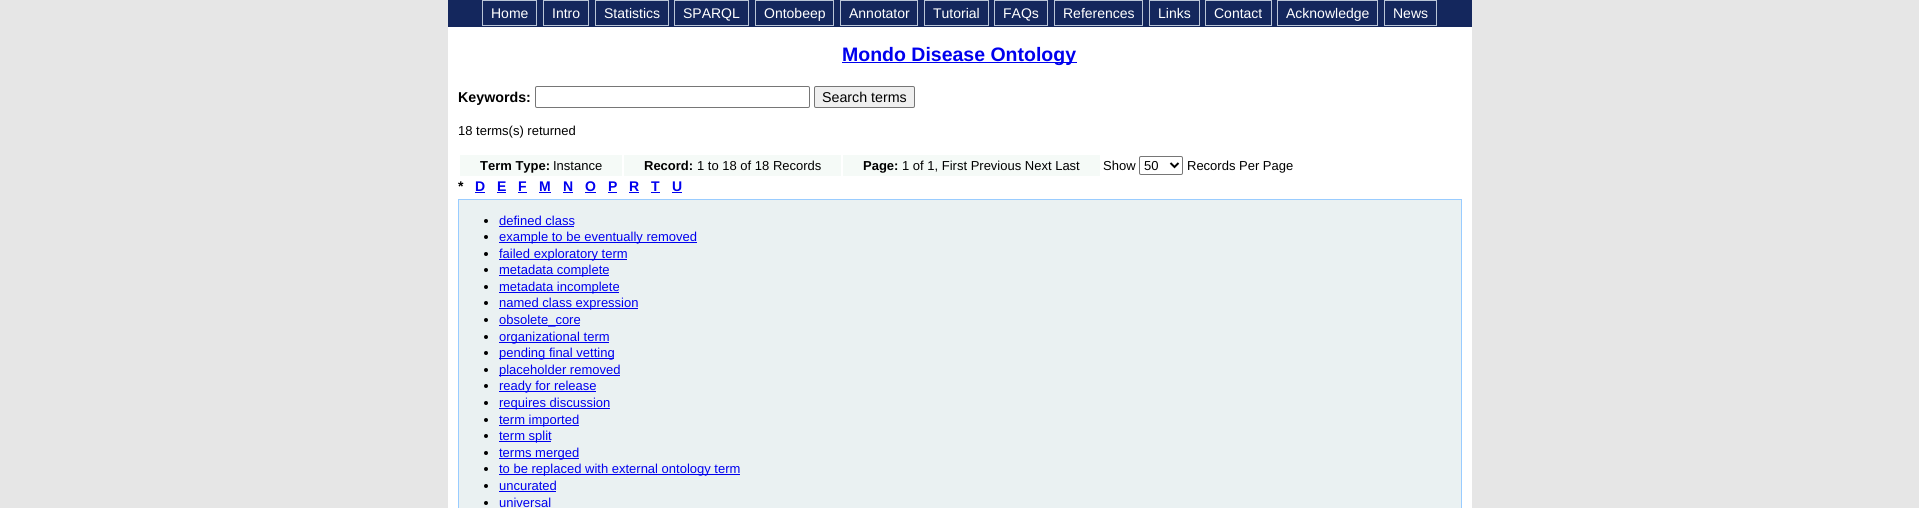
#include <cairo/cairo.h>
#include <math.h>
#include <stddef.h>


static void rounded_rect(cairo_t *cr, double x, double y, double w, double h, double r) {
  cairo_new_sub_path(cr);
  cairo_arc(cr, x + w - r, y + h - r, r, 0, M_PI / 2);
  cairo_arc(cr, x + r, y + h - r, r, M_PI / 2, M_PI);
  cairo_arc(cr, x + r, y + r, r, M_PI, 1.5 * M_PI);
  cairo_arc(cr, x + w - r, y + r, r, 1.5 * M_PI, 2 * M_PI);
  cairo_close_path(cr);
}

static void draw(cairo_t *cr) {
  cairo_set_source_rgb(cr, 230 / 255.0, 230 / 255.0, 230 / 255.0);
  cairo_paint(cr);
  cairo_set_source_rgb(cr, 20 / 255.0, 39 / 255.0, 93 / 255.0);
  cairo_rectangle(cr, 448, 0, 1024, 27);
  cairo_fill(cr);
  cairo_rectangle(cr, 482.5, 0.5, 54, 25);
  cairo_set_source_rgb(cr, 186 / 255.0, 197 / 255.0, 215 / 255.0);
  cairo_set_line_width(cr, 1);
  cairo_stroke(cr);
  cairo_rectangle(cr, 543.5, 0.5, 45, 25);
  cairo_stroke(cr);
  cairo_rectangle(cr, 595.5, 0.5, 73, 25);
  cairo_stroke(cr);
  cairo_rectangle(cr, 674.5, 0.5, 74, 25);
  cairo_stroke(cr);
  cairo_rectangle(cr, 755.5, 0.5, 78, 25);
  cairo_stroke(cr);
  cairo_rectangle(cr, 840.5, 0.5, 77, 25);
  cairo_stroke(cr);
  cairo_rectangle(cr, 924.5, 0.5, 64, 25);
  cairo_stroke(cr);
  cairo_rectangle(cr, 994.5, 0.5, 53, 25);
  cairo_stroke(cr);
  cairo_rectangle(cr, 1054.5, 0.5, 88, 25);
  cairo_stroke(cr);
  cairo_rectangle(cr, 1149.5, 0.5, 50, 25);
  cairo_stroke(cr);
  cairo_rectangle(cr, 1205.5, 0.5, 66, 25);
  cairo_stroke(cr);
  cairo_rectangle(cr, 1277.5, 0.5, 100, 25);
  cairo_stroke(cr);
  cairo_rectangle(cr, 1384.5, 0.5, 52, 25);
  cairo_stroke(cr);
  cairo_set_source_rgb(cr, 1, 1, 1);
  cairo_rectangle(cr, 448, 27, 1024, 481);
  cairo_fill(cr);
  cairo_set_source_rgb(cr, 0, 0, 238 / 255.0);
  cairo_rectangle(cr, 842, 62, 235, 1);
  cairo_fill(cr);
  rounded_rect(cr, 535.5, 86.5, 274, 21, 1.5);
  cairo_set_source_rgb(cr, 118 / 255.0, 118 / 255.0, 118 / 255.0);
  cairo_stroke(cr);
  cairo_set_source_rgb(cr, 239 / 255.0, 239 / 255.0, 239 / 255.0);
  rounded_rect(cr, 814.5, 86.5, 100, 21, 1.5);
  cairo_fill_preserve(cr);
  cairo_set_source_rgb(cr, 118 / 255.0, 118 / 255.0, 118 / 255.0);
  cairo_stroke(cr);
  cairo_set_source_rgb(cr, 245 / 255.0, 250 / 255.0, 247 / 255.0);
  cairo_rectangle(cr, 460, 155, 162, 21);
  cairo_fill(cr);
  cairo_rectangle(cr, 624, 155, 217, 21);
  cairo_fill(cr);
  cairo_rectangle(cr, 843, 155, 257, 21);
  cairo_fill(cr);
  rounded_rect(cr, 1139.5, 156.5, 43, 18, 1.5);
  cairo_set_source_rgb(cr, 118 / 255.0, 118 / 255.0, 118 / 255.0);
  cairo_stroke(cr);
  cairo_new_path(cr);
  cairo_move_to(cr, 1170.5, 163);
  cairo_line_to(cr, 1174.5, 167);
  cairo_line_to(cr, 1178.5, 163);
  cairo_set_source_rgb(cr, 0, 0, 0);
  cairo_set_line_width(cr, 2);
  cairo_stroke(cr);
  cairo_set_source_rgb(cr, 0, 0, 238 / 255.0);
  cairo_rectangle(cr, 475, 192, 10, 1);
  cairo_fill(cr);
  cairo_rectangle(cr, 497, 192, 9, 1);
  cairo_fill(cr);
  cairo_rectangle(cr, 518, 192, 9, 1);
  cairo_fill(cr);
  cairo_rectangle(cr, 539, 192, 12, 1);
  cairo_fill(cr);
  cairo_rectangle(cr, 563, 192, 10, 1);
  cairo_fill(cr);
  cairo_rectangle(cr, 585, 192, 11, 1);
  cairo_fill(cr);
  cairo_rectangle(cr, 608, 192, 9, 1);
  cairo_fill(cr);
  cairo_rectangle(cr, 629, 192, 10, 1);
  cairo_fill(cr);
  cairo_rectangle(cr, 651, 192, 9, 1);
  cairo_fill(cr);
  cairo_rectangle(cr, 672, 192, 10, 1);
  cairo_fill(cr);
  cairo_set_source_rgb(cr, 234 / 255.0, 241 / 255.0, 242 / 255.0);
  cairo_rectangle(cr, 458.5, 199.5, 1003, 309);
  cairo_fill_preserve(cr);
  cairo_set_source_rgb(cr, 153 / 255.0, 204 / 255.0, 1);
  cairo_set_line_width(cr, 1);
  cairo_stroke(cr);
  cairo_set_source_rgb(cr, 0, 0, 0);
  cairo_arc(cr, 486, 221, 2, 0, 2 * M_PI);
  cairo_fill(cr);
  cairo_set_source_rgb(cr, 0, 0, 238 / 255.0);
  cairo_rectangle(cr, 499, 226, 75, 1);
  cairo_fill(cr);
  cairo_set_source_rgb(cr, 0, 0, 0);
  cairo_arc(cr, 486, 237, 2, 0, 2 * M_PI);
  cairo_fill(cr);
  cairo_set_source_rgb(cr, 0, 0, 238 / 255.0);
  cairo_rectangle(cr, 499, 242, 198, 1);
  cairo_fill(cr);
  cairo_set_source_rgb(cr, 0, 0, 0);
  cairo_arc(cr, 486, 254, 2, 0, 2 * M_PI);
  cairo_fill(cr);
  cairo_set_source_rgb(cr, 0, 0, 238 / 255.0);
  cairo_rectangle(cr, 499, 259, 128, 1);
  cairo_fill(cr);
  cairo_set_source_rgb(cr, 0, 0, 0);
  cairo_arc(cr, 486, 270, 2, 0, 2 * M_PI);
  cairo_fill(cr);
  cairo_set_source_rgb(cr, 0, 0, 238 / 255.0);
  cairo_rectangle(cr, 499, 275, 110, 1);
  cairo_fill(cr);
  cairo_set_source_rgb(cr, 0, 0, 0);
  cairo_arc(cr, 486, 287, 2, 0, 2 * M_PI);
  cairo_fill(cr);
  cairo_set_source_rgb(cr, 0, 0, 238 / 255.0);
  cairo_rectangle(cr, 499, 292, 120, 1);
  cairo_fill(cr);
  cairo_set_source_rgb(cr, 0, 0, 0);
  cairo_arc(cr, 486, 303, 2, 0, 2 * M_PI);
  cairo_fill(cr);
  cairo_set_source_rgb(cr, 0, 0, 238 / 255.0);
  cairo_rectangle(cr, 499, 308, 139, 1);
  cairo_fill(cr);
  cairo_set_source_rgb(cr, 0, 0, 0);
  cairo_arc(cr, 486, 320, 2, 0, 2 * M_PI);
  cairo_fill(cr);
  cairo_set_source_rgb(cr, 0, 0, 238 / 255.0);
  cairo_rectangle(cr, 499, 325, 81, 1);
  cairo_fill(cr);
  cairo_set_source_rgb(cr, 0, 0, 0);
  cairo_arc(cr, 486, 337, 2, 0, 2 * M_PI);
  cairo_fill(cr);
  cairo_set_source_rgb(cr, 0, 0, 238 / 255.0);
  cairo_rectangle(cr, 499, 342, 110, 1);
  cairo_fill(cr);
  cairo_set_source_rgb(cr, 0, 0, 0);
  cairo_arc(cr, 486, 353, 2, 0, 2 * M_PI);
  cairo_fill(cr);
  cairo_set_source_rgb(cr, 0, 0, 238 / 255.0);
  cairo_rectangle(cr, 499, 358, 115, 1);
  cairo_fill(cr);
  cairo_set_source_rgb(cr, 0, 0, 0);
  cairo_arc(cr, 486, 370, 2, 0, 2 * M_PI);
  cairo_fill(cr);
  cairo_set_source_rgb(cr, 0, 0, 238 / 255.0);
  cairo_rectangle(cr, 499, 375, 121, 1);
  cairo_fill(cr);
  cairo_set_source_rgb(cr, 0, 0, 0);
  cairo_arc(cr, 486, 386, 2, 0, 2 * M_PI);
  cairo_fill(cr);
  cairo_set_source_rgb(cr, 0, 0, 238 / 255.0);
  cairo_rectangle(cr, 499, 391, 97, 1);
  cairo_fill(cr);
  cairo_set_source_rgb(cr, 0, 0, 0);
  cairo_arc(cr, 486, 403, 2, 0, 2 * M_PI);
  cairo_fill(cr);
  cairo_set_source_rgb(cr, 0, 0, 238 / 255.0);
  cairo_rectangle(cr, 499, 408, 111, 1);
  cairo_fill(cr);
  cairo_set_source_rgb(cr, 0, 0, 0);
  cairo_arc(cr, 486, 420, 2, 0, 2 * M_PI);
  cairo_fill(cr);
  cairo_set_source_rgb(cr, 0, 0, 238 / 255.0);
  cairo_rectangle(cr, 499, 425, 80, 1);
  cairo_fill(cr);
  cairo_set_source_rgb(cr, 0, 0, 0);
  cairo_arc(cr, 486, 436, 2, 0, 2 * M_PI);
  cairo_fill(cr);
  cairo_set_source_rgb(cr, 0, 0, 238 / 255.0);
  cairo_rectangle(cr, 499, 441, 52, 1);
  cairo_fill(cr);
  cairo_set_source_rgb(cr, 0, 0, 0);
  cairo_arc(cr, 486, 453, 2, 0, 2 * M_PI);
  cairo_fill(cr);
  cairo_set_source_rgb(cr, 0, 0, 238 / 255.0);
  cairo_rectangle(cr, 499, 458, 80, 1);
  cairo_fill(cr);
  cairo_set_source_rgb(cr, 0, 0, 0);
  cairo_arc(cr, 486, 469, 2, 0, 2 * M_PI);
  cairo_fill(cr);
  cairo_set_source_rgb(cr, 0, 0, 238 / 255.0);
  cairo_rectangle(cr, 499, 474, 241, 1);
  cairo_fill(cr);
  cairo_set_source_rgb(cr, 0, 0, 0);
  cairo_arc(cr, 486, 486, 2, 0, 2 * M_PI);
  cairo_fill(cr);
  cairo_set_source_rgb(cr, 0, 0, 238 / 255.0);
  cairo_rectangle(cr, 499, 491, 57, 1);
  cairo_fill(cr);
  cairo_set_source_rgb(cr, 0, 0, 0);
  cairo_arc(cr, 486, 503, 2, 0, 2 * M_PI);
  cairo_fill(cr);
  cairo_select_font_face(cr, "Liberation Sans", CAIRO_FONT_SLANT_NORMAL, CAIRO_FONT_WEIGHT_NORMAL);
  cairo_set_font_size(cr, 14);
  cairo_set_source_rgb(cr, 1, 1, 1);
  cairo_move_to(cr, 491, 18);
  cairo_show_text(cr, "Home");
  cairo_move_to(cr, 552, 18);
  cairo_show_text(cr, "Intro");
  cairo_move_to(cr, 604, 18);
  cairo_show_text(cr, "Statistics");
  cairo_move_to(cr, 683, 18);
  cairo_show_text(cr, "SPARQL");
  cairo_move_to(cr, 764, 18);
  cairo_show_text(cr, "Ontobeep");
  cairo_move_to(cr, 849, 18);
  cairo_show_text(cr, "Annotator");
  cairo_move_to(cr, 933, 18);
  cairo_show_text(cr, "Tutorial");
  cairo_move_to(cr, 1003, 18);
  cairo_show_text(cr, "FAQs");
  cairo_move_to(cr, 1063, 18);
  cairo_show_text(cr, "References");
  cairo_move_to(cr, 1158, 18);
  cairo_show_text(cr, "Links");
  cairo_move_to(cr, 1214, 18);
  cairo_show_text(cr, "Contact");
  cairo_move_to(cr, 1286, 18);
  cairo_show_text(cr, "Acknowledge");
  cairo_move_to(cr, 1393, 18);
  cairo_show_text(cr, "News");
  cairo_select_font_face(cr, "Liberation Sans", CAIRO_FONT_SLANT_NORMAL, CAIRO_FONT_WEIGHT_BOLD);
  cairo_set_font_size(cr, 19.5);
  cairo_set_source_rgb(cr, 0, 0, 238 / 255.0);
  cairo_move_to(cr, 842, 61);
  cairo_show_text(cr, "Mondo Disease Ontology");
  cairo_set_font_size(cr, 14.25);
  cairo_set_source_rgb(cr, 0, 0, 0);
  cairo_move_to(cr, 458, 102);
  cairo_show_text(cr, "Keywords:");
  cairo_select_font_face(cr, "Liberation Sans", CAIRO_FONT_SLANT_NORMAL, CAIRO_FONT_WEIGHT_NORMAL);
  cairo_move_to(cr, 822, 102);
  cairo_show_text(cr, "Search terms");
  cairo_set_font_size(cr, 13);
  cairo_move_to(cr, 458, 135);
  cairo_show_text(cr, "18 terms(s) returned");
  cairo_select_font_face(cr, "Liberation Sans", CAIRO_FONT_SLANT_NORMAL, CAIRO_FONT_WEIGHT_BOLD);
  cairo_move_to(cr, 480, 170);
  cairo_show_text(cr, "Term Type:");
  cairo_select_font_face(cr, "Liberation Sans", CAIRO_FONT_SLANT_NORMAL, CAIRO_FONT_WEIGHT_NORMAL);
  cairo_move_to(cr, 553, 170);
  cairo_show_text(cr, "Instance");
  cairo_select_font_face(cr, "Liberation Sans", CAIRO_FONT_SLANT_NORMAL, CAIRO_FONT_WEIGHT_BOLD);
  cairo_move_to(cr, 644, 170);
  cairo_show_text(cr, "Record:");
  cairo_select_font_face(cr, "Liberation Sans", CAIRO_FONT_SLANT_NORMAL, CAIRO_FONT_WEIGHT_NORMAL);
  cairo_move_to(cr, 697, 170);
  cairo_show_text(cr, "1 to 18 of 18 Records");
  cairo_select_font_face(cr, "Liberation Sans", CAIRO_FONT_SLANT_NORMAL, CAIRO_FONT_WEIGHT_BOLD);
  cairo_move_to(cr, 863, 170);
  cairo_show_text(cr, "Page:");
  cairo_select_font_face(cr, "Liberation Sans", CAIRO_FONT_SLANT_NORMAL, CAIRO_FONT_WEIGHT_NORMAL);
  cairo_move_to(cr, 902, 170);
  cairo_show_text(cr, "1 of 1, First Previous Next Last");
  cairo_move_to(cr, 1103, 170);
  cairo_show_text(cr, "Show");
  cairo_move_to(cr, 1144, 170);
  cairo_show_text(cr, "50");
  cairo_move_to(cr, 1187, 170);
  cairo_show_text(cr, "Records Per Page");
  cairo_select_font_face(cr, "Liberation Sans", CAIRO_FONT_SLANT_NORMAL, CAIRO_FONT_WEIGHT_BOLD);
  cairo_set_font_size(cr, 14);
  cairo_move_to(cr, 458, 191);
  cairo_show_text(cr, "*");
  cairo_set_source_rgb(cr, 0, 0, 238 / 255.0);
  cairo_move_to(cr, 475, 191);
  cairo_show_text(cr, "D");
  cairo_move_to(cr, 497, 191);
  cairo_show_text(cr, "E");
  cairo_move_to(cr, 518, 191);
  cairo_show_text(cr, "F");
  cairo_move_to(cr, 539, 191);
  cairo_show_text(cr, "M");
  cairo_move_to(cr, 563, 191);
  cairo_show_text(cr, "N");
  cairo_move_to(cr, 585, 191);
  cairo_show_text(cr, "O");
  cairo_move_to(cr, 608, 191);
  cairo_show_text(cr, "P");
  cairo_move_to(cr, 629, 191);
  cairo_show_text(cr, "R");
  cairo_move_to(cr, 651, 191);
  cairo_show_text(cr, "T");
  cairo_move_to(cr, 672, 191);
  cairo_show_text(cr, "U");
  cairo_select_font_face(cr, "Liberation Sans", CAIRO_FONT_SLANT_NORMAL, CAIRO_FONT_WEIGHT_NORMAL);
  cairo_set_font_size(cr, 13);
  cairo_move_to(cr, 499, 225);
  cairo_show_text(cr, "defined class");
  cairo_move_to(cr, 499, 241);
  cairo_show_text(cr, "example to be eventually removed");
  cairo_move_to(cr, 499, 258);
  cairo_show_text(cr, "failed exploratory term");
  cairo_move_to(cr, 499, 274);
  cairo_show_text(cr, "metadata complete");
  cairo_move_to(cr, 499, 291);
  cairo_show_text(cr, "metadata incomplete");
  cairo_move_to(cr, 499, 307);
  cairo_show_text(cr, "named class expression");
  cairo_move_to(cr, 499, 324);
  cairo_show_text(cr, "obsolete_core");
  cairo_move_to(cr, 499, 341);
  cairo_show_text(cr, "organizational term");
  cairo_move_to(cr, 499, 357);
  cairo_show_text(cr, "pending final vetting");
  cairo_move_to(cr, 499, 374);
  cairo_show_text(cr, "placeholder removed");
  cairo_move_to(cr, 499, 390);
  cairo_show_text(cr, "ready for release");
  cairo_move_to(cr, 499, 407);
  cairo_show_text(cr, "requires discussion");
  cairo_move_to(cr, 499, 424);
  cairo_show_text(cr, "term imported");
  cairo_move_to(cr, 499, 440);
  cairo_show_text(cr, "term split");
  cairo_move_to(cr, 499, 457);
  cairo_show_text(cr, "terms merged");
  cairo_move_to(cr, 499, 473);
  cairo_show_text(cr, "to be replaced with external ontology term");
  cairo_move_to(cr, 499, 490);
  cairo_show_text(cr, "uncurated");
  cairo_move_to(cr, 499, 507);
  cairo_show_text(cr, "universal");
}

int main(void) {
  cairo_surface_t *surface = cairo_image_surface_create(CAIRO_FORMAT_RGB24, 1919, 508);
  cairo_t *cr = cairo_create(surface);
  cairo_font_options_t *options = cairo_font_options_create();
  cairo_font_options_set_hint_metrics(options, CAIRO_HINT_METRICS_OFF);
  cairo_font_options_set_hint_style(options, CAIRO_HINT_STYLE_NONE);
  cairo_set_font_options(cr, options);
  cairo_set_miter_limit(cr, 4);
  draw(cr);
  cairo_surface_write_to_png(surface, "out.png");
  cairo_font_options_destroy(options);
  cairo_destroy(cr);
  cairo_surface_destroy(surface);
  return 0;
}
